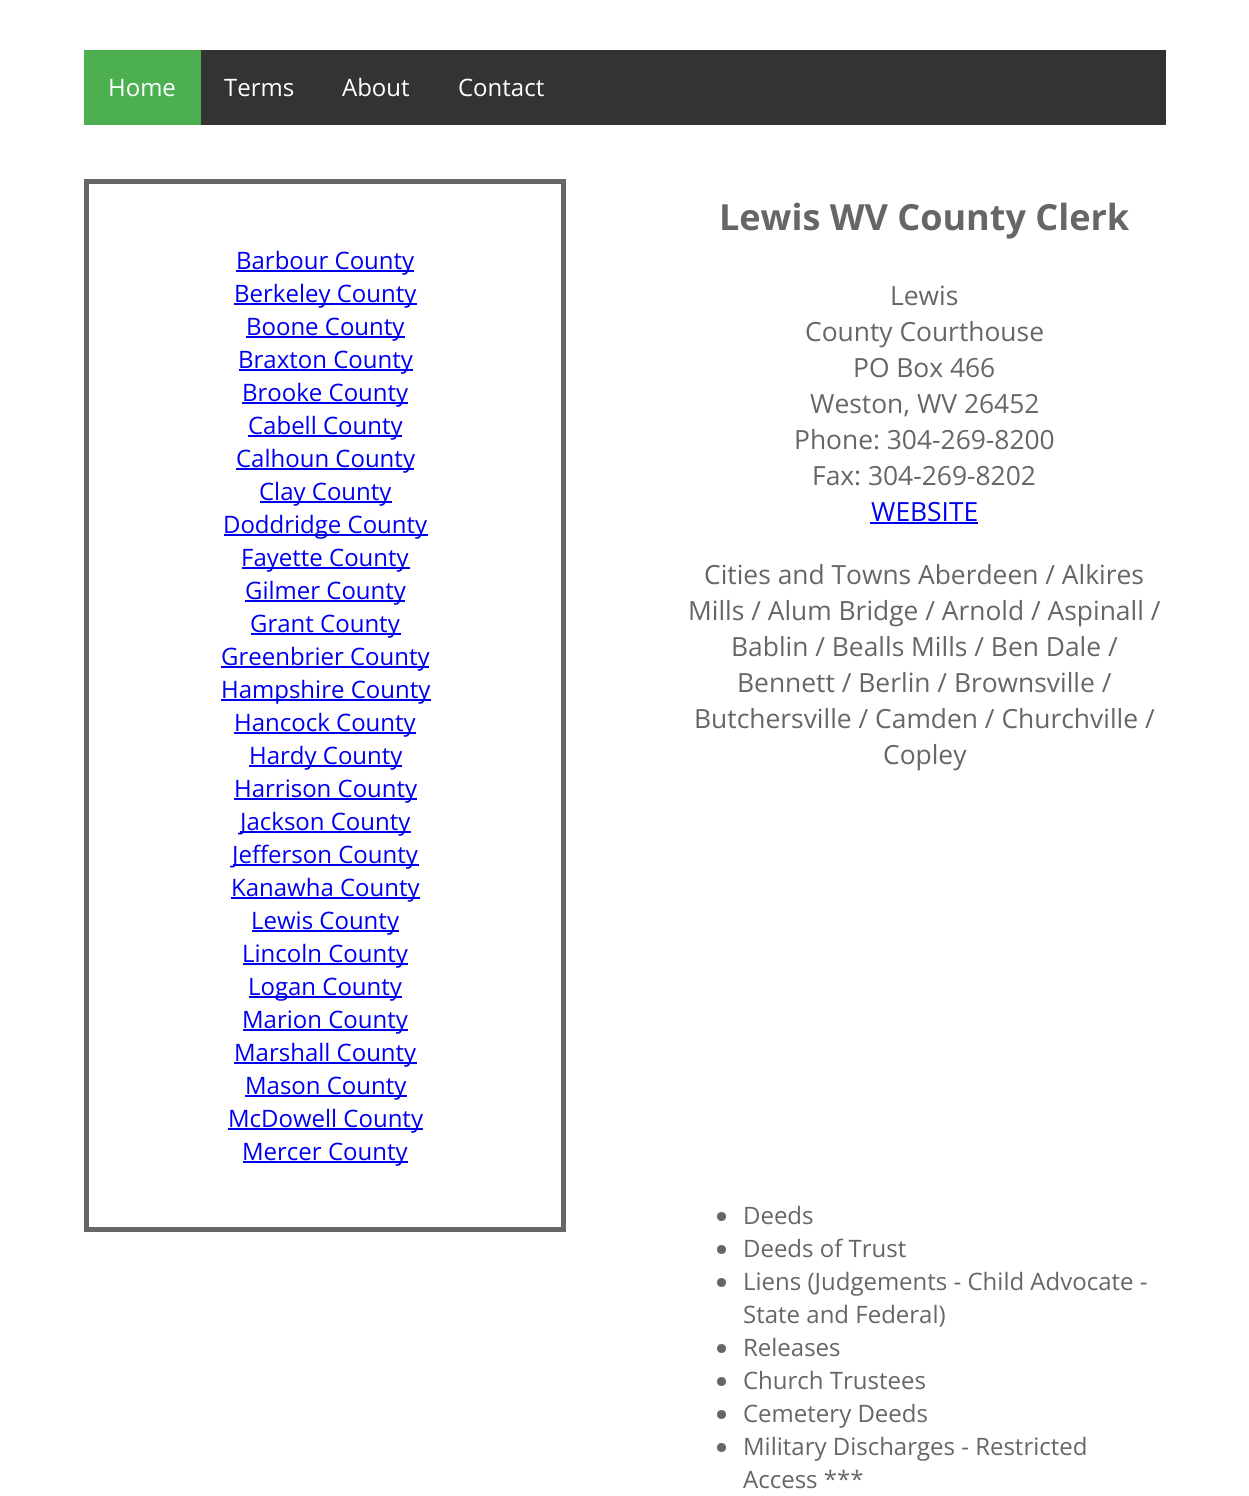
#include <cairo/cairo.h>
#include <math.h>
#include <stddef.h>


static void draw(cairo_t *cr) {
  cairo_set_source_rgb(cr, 1, 1, 1);
  cairo_paint(cr);
  cairo_set_source_rgb(cr, 51 / 255.0, 51 / 255.0, 51 / 255.0);
  cairo_rectangle(cr, 201, 50, 965, 75);
  cairo_fill(cr);
  cairo_set_source_rgb(cr, 76 / 255.0, 175 / 255.0, 80 / 255.0);
  cairo_rectangle(cr, 84, 50, 117, 75);
  cairo_fill(cr);
  cairo_rectangle(cr, 86.5, 181.5, 477, 1048);
  cairo_set_source_rgb(cr, 102 / 255.0, 102 / 255.0, 102 / 255.0);
  cairo_set_line_width(cr, 5);
  cairo_stroke(cr);
  cairo_set_source_rgb(cr, 0, 0, 238 / 255.0);
  cairo_rectangle(cr, 236, 270, 178, 2);
  cairo_fill(cr);
  cairo_rectangle(cr, 234, 303, 183, 2);
  cairo_fill(cr);
  cairo_rectangle(cr, 246, 336, 159, 2);
  cairo_fill(cr);
  cairo_rectangle(cr, 239, 369, 174, 2);
  cairo_fill(cr);
  cairo_rectangle(cr, 242, 402, 166, 2);
  cairo_fill(cr);
  cairo_rectangle(cr, 248, 435, 154, 2);
  cairo_fill(cr);
  cairo_rectangle(cr, 236, 468, 178, 2);
  cairo_fill(cr);
  cairo_rectangle(cr, 260, 501, 132, 2);
  cairo_fill(cr);
  cairo_rectangle(cr, 224, 534, 204, 2);
  cairo_fill(cr);
  cairo_rectangle(cr, 242, 567, 168, 2);
  cairo_fill(cr);
  cairo_rectangle(cr, 245, 600, 160, 2);
  cairo_fill(cr);
  cairo_rectangle(cr, 251, 633, 150, 2);
  cairo_fill(cr);
  cairo_rectangle(cr, 221, 666, 208, 2);
  cairo_fill(cr);
  cairo_rectangle(cr, 221, 699, 210, 2);
  cairo_fill(cr);
  cairo_rectangle(cr, 234, 732, 182, 2);
  cairo_fill(cr);
  cairo_rectangle(cr, 249, 765, 153, 2);
  cairo_fill(cr);
  cairo_rectangle(cr, 234, 798, 183, 2);
  cairo_fill(cr);
  cairo_rectangle(cr, 240, 831, 171, 2);
  cairo_fill(cr);
  cairo_rectangle(cr, 233, 864, 186, 2);
  cairo_fill(cr);
  cairo_rectangle(cr, 231, 897, 189, 2);
  cairo_fill(cr);
  cairo_rectangle(cr, 252, 930, 147, 2);
  cairo_fill(cr);
  cairo_rectangle(cr, 243, 963, 165, 2);
  cairo_fill(cr);
  cairo_rectangle(cr, 249, 996, 153, 2);
  cairo_fill(cr);
  cairo_rectangle(cr, 243, 1029, 165, 2);
  cairo_fill(cr);
  cairo_rectangle(cr, 234, 1062, 183, 2);
  cairo_fill(cr);
  cairo_rectangle(cr, 245, 1095, 162, 2);
  cairo_fill(cr);
  cairo_rectangle(cr, 228, 1128, 195, 2);
  cairo_fill(cr);
  cairo_rectangle(cr, 243, 1161, 165, 2);
  cairo_fill(cr);
  cairo_rectangle(cr, 870, 522, 108, 2);
  cairo_fill(cr);
  cairo_set_source_rgb(cr, 102 / 255.0, 102 / 255.0, 102 / 255.0);
  cairo_arc(cr, 721.5, 1216.5, 4.5, 0, 2 * M_PI);
  cairo_fill(cr);
  cairo_arc(cr, 721.5, 1249.5, 4.5, 0, 2 * M_PI);
  cairo_fill(cr);
  cairo_arc(cr, 721.5, 1282.5, 4.5, 0, 2 * M_PI);
  cairo_fill(cr);
  cairo_arc(cr, 721.5, 1348.5, 4.5, 0, 2 * M_PI);
  cairo_fill(cr);
  cairo_arc(cr, 721.5, 1381.5, 4.5, 0, 2 * M_PI);
  cairo_fill(cr);
  cairo_arc(cr, 721.5, 1414.5, 4.5, 0, 2 * M_PI);
  cairo_fill(cr);
  cairo_arc(cr, 721.5, 1447.5, 4.5, 0, 2 * M_PI);
  cairo_fill(cr);
  cairo_select_font_face(cr, "Open Sans", CAIRO_FONT_SLANT_NORMAL, CAIRO_FONT_WEIGHT_NORMAL);
  cairo_set_font_size(cr, 24);
  cairo_set_source_rgb(cr, 1, 1, 1);
  cairo_move_to(cr, 108, 96);
  cairo_show_text(cr, "Home");
  cairo_move_to(cr, 224, 96);
  cairo_show_text(cr, "Terms");
  cairo_move_to(cr, 342, 96);
  cairo_show_text(cr, "About");
  cairo_move_to(cr, 458, 96);
  cairo_show_text(cr, "Contact");
  cairo_set_source_rgb(cr, 0, 0, 238 / 255.0);
  cairo_move_to(cr, 236, 269);
  cairo_show_text(cr, "Barbour County");
  cairo_move_to(cr, 234, 302);
  cairo_show_text(cr, "Berkeley County");
  cairo_move_to(cr, 246, 335);
  cairo_show_text(cr, "Boone County");
  cairo_move_to(cr, 238, 368);
  cairo_show_text(cr, "Braxton County");
  cairo_move_to(cr, 242, 401);
  cairo_show_text(cr, "Brooke County");
  cairo_move_to(cr, 248, 434);
  cairo_show_text(cr, "Cabell County");
  cairo_move_to(cr, 236, 467);
  cairo_show_text(cr, "Calhoun County");
  cairo_move_to(cr, 259, 500);
  cairo_show_text(cr, "Clay County");
  cairo_move_to(cr, 223, 533);
  cairo_show_text(cr, "Doddridge County");
  cairo_move_to(cr, 241, 566);
  cairo_show_text(cr, "Fayette County");
  cairo_move_to(cr, 245, 599);
  cairo_show_text(cr, "Gilmer County");
  cairo_move_to(cr, 250, 632);
  cairo_show_text(cr, "Grant County");
  cairo_move_to(cr, 221, 665);
  cairo_show_text(cr, "Greenbrier County");
  cairo_move_to(cr, 221, 698);
  cairo_show_text(cr, "Hampshire County");
  cairo_move_to(cr, 234, 731);
  cairo_show_text(cr, "Hancock County");
  cairo_move_to(cr, 249, 764);
  cairo_show_text(cr, "Hardy County");
  cairo_move_to(cr, 234, 797);
  cairo_show_text(cr, "Harrison County");
  cairo_move_to(cr, 240, 830);
  cairo_show_text(cr, "Jackson County");
  cairo_move_to(cr, 232, 863);
  cairo_show_text(cr, "Jefferson County");
  cairo_move_to(cr, 231, 896);
  cairo_show_text(cr, "Kanawha County");
  cairo_move_to(cr, 251, 929);
  cairo_show_text(cr, "Lewis County");
  cairo_move_to(cr, 242, 962);
  cairo_show_text(cr, "Lincoln County");
  cairo_move_to(cr, 248, 995);
  cairo_show_text(cr, "Logan County");
  cairo_move_to(cr, 242, 1028);
  cairo_show_text(cr, "Marion County");
  cairo_move_to(cr, 234, 1061);
  cairo_show_text(cr, "Marshall County");
  cairo_move_to(cr, 245, 1094);
  cairo_show_text(cr, "Mason County");
  cairo_move_to(cr, 228, 1127);
  cairo_show_text(cr, "McDowell County");
  cairo_move_to(cr, 242, 1160);
  cairo_show_text(cr, "Mercer County");
  cairo_select_font_face(cr, "Open Sans", CAIRO_FONT_SLANT_NORMAL, CAIRO_FONT_WEIGHT_BOLD);
  cairo_set_font_size(cr, 36);
  cairo_set_source_rgb(cr, 102 / 255.0, 102 / 255.0, 102 / 255.0);
  cairo_move_to(cr, 719, 230);
  cairo_show_text(cr, "Lewis WV County Clerk");
  cairo_select_font_face(cr, "Open Sans", CAIRO_FONT_SLANT_NORMAL, CAIRO_FONT_WEIGHT_NORMAL);
  cairo_set_font_size(cr, 26.4);
  cairo_move_to(cr, 890, 305);
  cairo_show_text(cr, "Lewis");
  cairo_move_to(cr, 805, 341);
  cairo_show_text(cr, "County Courthouse");
  cairo_move_to(cr, 853, 377);
  cairo_show_text(cr, "PO Box 466");
  cairo_move_to(cr, 810, 413);
  cairo_show_text(cr, "Weston, WV 26452");
  cairo_move_to(cr, 794, 449);
  cairo_show_text(cr, "Phone: 304-269-8200");
  cairo_move_to(cr, 812, 485);
  cairo_show_text(cr, "Fax: 304-269-8202");
  cairo_set_source_rgb(cr, 0, 0, 238 / 255.0);
  cairo_move_to(cr, 871, 521);
  cairo_show_text(cr, "WEBSITE");
  cairo_set_source_rgb(cr, 102 / 255.0, 102 / 255.0, 102 / 255.0);
  cairo_move_to(cr, 704, 584);
  cairo_show_text(cr, "Cities and Towns Aberdeen / Alkires");
  cairo_move_to(cr, 688, 620);
  cairo_show_text(cr, "Mills / Alum Bridge / Arnold / Aspinall /");
  cairo_move_to(cr, 731, 656);
  cairo_show_text(cr, "Bablin / Bealls Mills / Ben Dale /");
  cairo_move_to(cr, 737, 692);
  cairo_show_text(cr, "Bennett / Berlin / Brownsville /");
  cairo_move_to(cr, 694, 728);
  cairo_show_text(cr, "Butchersville / Camden / Churchville /");
  cairo_move_to(cr, 883, 764);
  cairo_show_text(cr, "Copley");
  cairo_set_font_size(cr, 24);
  cairo_move_to(cr, 743, 1224);
  cairo_show_text(cr, "Deeds");
  cairo_move_to(cr, 743, 1257);
  cairo_show_text(cr, "Deeds of Trust");
  cairo_move_to(cr, 743, 1290);
  cairo_show_text(cr, "Liens (Judgements - Child Advocate -");
  cairo_move_to(cr, 743, 1323);
  cairo_show_text(cr, "State and Federal)");
  cairo_move_to(cr, 743, 1356);
  cairo_show_text(cr, "Releases");
  cairo_move_to(cr, 743, 1389);
  cairo_show_text(cr, "Church Trustees");
  cairo_move_to(cr, 743, 1422);
  cairo_show_text(cr, "Cemetery Deeds");
  cairo_move_to(cr, 743, 1455);
  cairo_show_text(cr, "Military Discharges - Restricted");
  cairo_move_to(cr, 743, 1488);
  cairo_show_text(cr, "Access ***");
}

int main(void) {
  cairo_surface_t *surface = cairo_image_surface_create(CAIRO_FORMAT_RGB24, 1249, 1496);
  cairo_t *cr = cairo_create(surface);
  cairo_font_options_t *options = cairo_font_options_create();
  cairo_font_options_set_hint_metrics(options, CAIRO_HINT_METRICS_OFF);
  cairo_font_options_set_hint_style(options, CAIRO_HINT_STYLE_NONE);
  cairo_set_font_options(cr, options);
  cairo_set_miter_limit(cr, 4);
  draw(cr);
  cairo_surface_write_to_png(surface, "out.png");
  cairo_font_options_destroy(options);
  cairo_destroy(cr);
  cairo_surface_destroy(surface);
  return 0;
}
